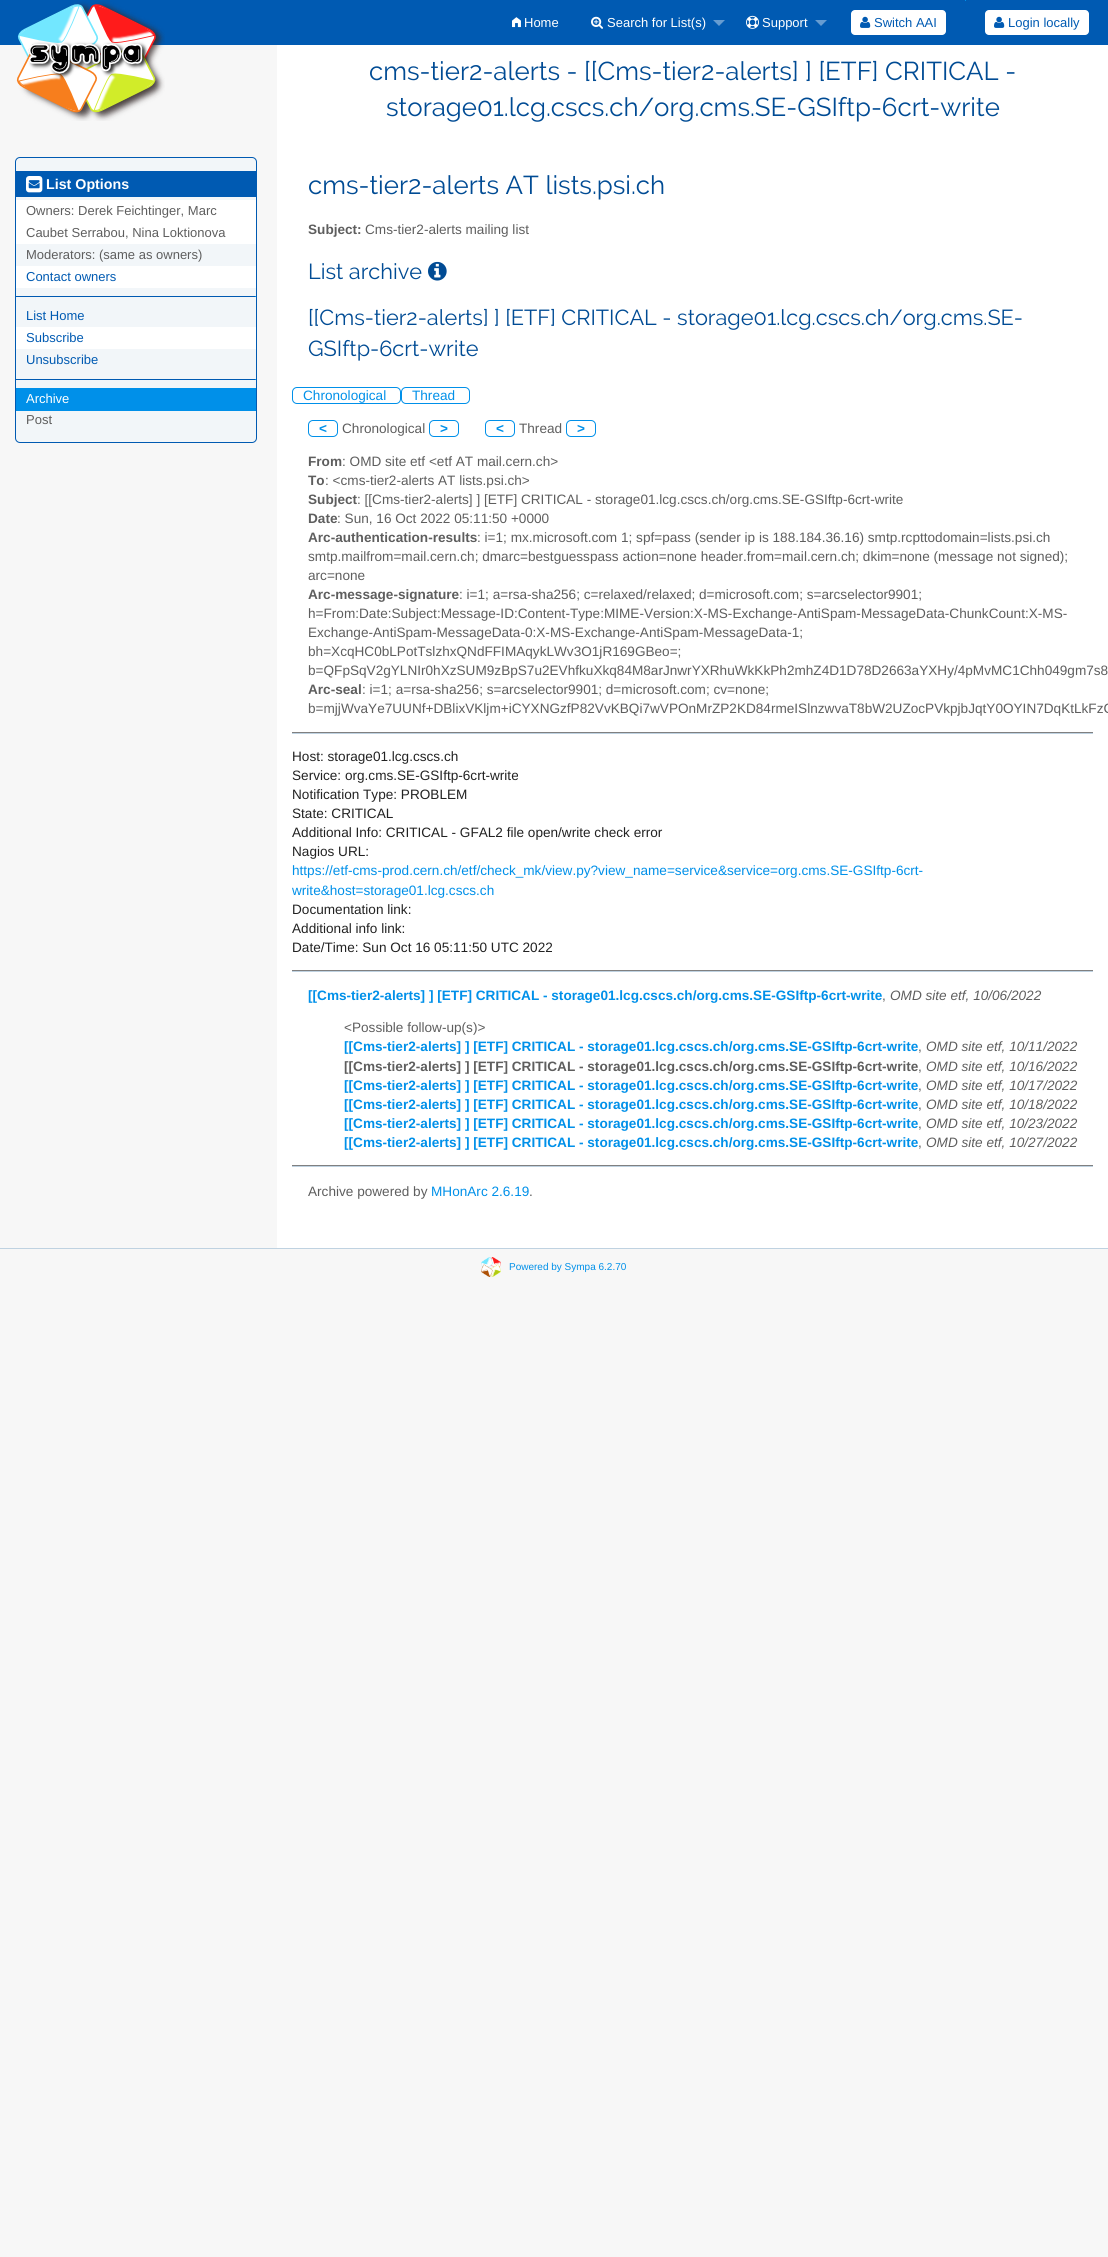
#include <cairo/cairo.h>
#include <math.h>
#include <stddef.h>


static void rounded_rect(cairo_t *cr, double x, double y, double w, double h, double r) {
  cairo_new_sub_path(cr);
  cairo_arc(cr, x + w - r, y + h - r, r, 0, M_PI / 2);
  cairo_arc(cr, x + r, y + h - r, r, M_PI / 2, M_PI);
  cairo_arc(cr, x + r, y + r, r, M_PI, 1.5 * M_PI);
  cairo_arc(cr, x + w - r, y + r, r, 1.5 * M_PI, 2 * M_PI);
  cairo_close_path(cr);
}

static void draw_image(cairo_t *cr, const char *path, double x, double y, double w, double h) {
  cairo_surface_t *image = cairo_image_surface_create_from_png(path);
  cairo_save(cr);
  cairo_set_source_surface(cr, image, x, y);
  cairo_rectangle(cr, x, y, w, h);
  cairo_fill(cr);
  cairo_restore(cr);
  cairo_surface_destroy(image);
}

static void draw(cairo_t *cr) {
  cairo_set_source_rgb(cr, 247 / 255.0, 247 / 255.0, 247 / 255.0);
  cairo_paint(cr);
  cairo_set_source_rgb(cr, 0, 90 / 255.0, 178 / 255.0);
  cairo_rectangle(cr, 0, 0, 1108, 45);
  cairo_fill(cr);
  draw_image(cr, "images/1.png", 16, 1, 149, 120);
  cairo_set_source_rgb(cr, 0, 144 / 255.0, 233 / 255.0);
  cairo_rectangle(cr, 965, 0, 1, 1);
  cairo_fill(cr);
  draw_image(cr, "images/2.png", 512, 17, 9, 11);
  draw_image(cr, "images/3.png", 591, 16, 12, 13);
  cairo_set_source_rgb(cr, 102 / 255.0, 156 / 255.0, 209 / 255.0);
  cairo_new_path(cr);
  cairo_move_to(cr, 713, 20);
  cairo_line_to(cr, 725, 20);
  cairo_line_to(cr, 719, 26);
  cairo_close_path(cr);
  cairo_fill(cr);
  draw_image(cr, "images/4.png", 746, 15, 13, 14);
  cairo_new_path(cr);
  cairo_move_to(cr, 815, 20);
  cairo_line_to(cr, 827, 20);
  cairo_line_to(cr, 821, 26);
  cairo_close_path(cr);
  cairo_fill(cr);
  cairo_set_source_rgb(cr, 1, 1, 1);
  rounded_rect(cr, 851, 10, 95, 25, 4);
  cairo_fill(cr);
  draw_image(cr, "images/5.png", 860, 16, 11, 12);
  rounded_rect(cr, 985, 10, 104, 25, 4);
  cairo_fill(cr);
  draw_image(cr, "images/5.png", 994, 16, 11, 12);
  cairo_rectangle(cr, 277, 45, 831, 1203);
  cairo_fill(cr);
  cairo_set_source_rgb(cr, 242 / 255.0, 246 / 255.0, 249 / 255.0);
  rounded_rect(cr, 15.5, 157.5, 241, 285, 4.5);
  cairo_fill_preserve(cr);
  cairo_set_source_rgb(cr, 0, 90 / 255.0, 178 / 255.0);
  cairo_set_line_width(cr, 1);
  cairo_stroke(cr);
  cairo_rectangle(cr, 16, 171, 240, 26);
  cairo_fill(cr);
  draw_image(cr, "images/6.png", 26, 176, 17, 17);
  cairo_set_source_rgb(cr, 1, 1, 1);
  cairo_rectangle(cr, 16, 200, 240, 44);
  cairo_fill(cr);
  cairo_rectangle(cr, 16, 266, 240, 22);
  cairo_fill(cr);
  cairo_set_source_rgb(cr, 0, 90 / 255.0, 178 / 255.0);
  cairo_rectangle(cr, 16, 296, 240, 1);
  cairo_fill(cr);
  cairo_set_source_rgb(cr, 0, 144 / 255.0, 233 / 255.0);
  cairo_rectangle(cr, 255, 296, 1, 1);
  cairo_fill(cr);
  cairo_set_source_rgb(cr, 1, 1, 1);
  cairo_rectangle(cr, 16, 327, 240, 22);
  cairo_fill(cr);
  cairo_set_source_rgb(cr, 0, 90 / 255.0, 178 / 255.0);
  cairo_rectangle(cr, 16, 379, 240, 1);
  cairo_fill(cr);
  cairo_set_source_rgb(cr, 0, 144 / 255.0, 233 / 255.0);
  cairo_rectangle(cr, 255, 379, 1, 1);
  cairo_fill(cr);
  cairo_rectangle(cr, 16, 388, 240, 23);
  cairo_fill(cr);
  draw_image(cr, "images/7.png", 428, 261, 19, 20);
  rounded_rect(cr, 292.5, 387.5, 108, 16, 4.5);
  cairo_stroke(cr);
  rounded_rect(cr, 401.5, 387.5, 68, 16, 4.5);
  cairo_stroke(cr);
  rounded_rect(cr, 308.5, 420.5, 29, 16, 4.5);
  cairo_stroke(cr);
  rounded_rect(cr, 429.5, 420.5, 29, 16, 4.5);
  cairo_stroke(cr);
  rounded_rect(cr, 485.5, 420.5, 29, 16, 4.5);
  cairo_stroke(cr);
  rounded_rect(cr, 566.5, 420.5, 29, 16, 4.5);
  cairo_stroke(cr);
  cairo_set_source_rgb(cr, 128 / 255.0, 128 / 255.0, 128 / 255.0);
  cairo_rectangle(cr, 292, 732, 801, 1);
  cairo_fill(cr);
  cairo_set_source_rgb(cr, 191 / 255.0, 210 / 255.0, 225 / 255.0);
  cairo_rectangle(cr, 292, 733, 801, 1);
  cairo_fill(cr);
  cairo_set_source_rgb(cr, 128 / 255.0, 128 / 255.0, 128 / 255.0);
  cairo_rectangle(cr, 292, 970, 801, 1);
  cairo_fill(cr);
  cairo_set_source_rgb(cr, 191 / 255.0, 210 / 255.0, 225 / 255.0);
  cairo_rectangle(cr, 292, 971, 801, 1);
  cairo_fill(cr);
  cairo_set_source_rgb(cr, 128 / 255.0, 128 / 255.0, 128 / 255.0);
  cairo_rectangle(cr, 292, 1165, 801, 1);
  cairo_fill(cr);
  cairo_set_source_rgb(cr, 191 / 255.0, 210 / 255.0, 225 / 255.0);
  cairo_rectangle(cr, 292, 1166, 801, 1);
  cairo_fill(cr);
  cairo_rectangle(cr, 0, 1248, 1108, 1);
  cairo_fill(cr);
  draw_image(cr, "images/8.png", 481, 1257, 20, 20);
  cairo_select_font_face(cr, "Liberation Sans", CAIRO_FONT_SLANT_NORMAL, CAIRO_FONT_WEIGHT_NORMAL);
  cairo_set_font_size(cr, 13);
  cairo_set_source_rgb(cr, 1, 1, 1);
  cairo_move_to(cr, 524, 27);
  cairo_show_text(cr, "Home");
  cairo_move_to(cr, 607, 27);
  cairo_show_text(cr, "Search for List(s)");
  cairo_move_to(cr, 762, 27);
  cairo_show_text(cr, "Support");
  cairo_set_source_rgb(cr, 0, 90 / 255.0, 178 / 255.0);
  cairo_move_to(cr, 874, 27);
  cairo_show_text(cr, "Switch AAI");
  cairo_move_to(cr, 1008, 27);
  cairo_show_text(cr, "Login locally");
  cairo_select_font_face(cr, "Raleway", CAIRO_FONT_SLANT_NORMAL, CAIRO_FONT_WEIGHT_NORMAL);
  cairo_set_font_size(cr, 25.85);
  cairo_set_source_rgb(cr, 0, 75 / 255.0, 148 / 255.0);
  cairo_move_to(cr, 369, 80);
  cairo_show_text(cr, "cms-tier2-alerts - [[Cms-tier2-alerts] ] [ETF] CRITICAL -");
  cairo_move_to(cr, 386, 116);
  cairo_show_text(cr, "storage01.lcg.cscs.ch/org.cms.SE-GSIftp-6crt-write");
  cairo_select_font_face(cr, "Liberation Sans", CAIRO_FONT_SLANT_NORMAL, CAIRO_FONT_WEIGHT_BOLD);
  cairo_set_font_size(cr, 14.25);
  cairo_set_source_rgb(cr, 1, 1, 1);
  cairo_move_to(cr, 46, 189);
  cairo_show_text(cr, "List Options");
  cairo_select_font_face(cr, "Liberation Sans", CAIRO_FONT_SLANT_NORMAL, CAIRO_FONT_WEIGHT_NORMAL);
  cairo_set_font_size(cr, 13);
  cairo_set_source_rgb(cr, 94 / 255.0, 94 / 255.0, 94 / 255.0);
  cairo_move_to(cr, 26, 215);
  cairo_show_text(cr, "Owners: Derek Feichtinger, Marc");
  cairo_move_to(cr, 26, 237);
  cairo_show_text(cr, "Caubet Serrabou, Nina Loktionova");
  cairo_move_to(cr, 26, 259);
  cairo_show_text(cr, "Moderators: (same as owners)");
  cairo_set_source_rgb(cr, 0, 90 / 255.0, 178 / 255.0);
  cairo_move_to(cr, 26, 281);
  cairo_show_text(cr, "Contact owners");
  cairo_move_to(cr, 26, 320);
  cairo_show_text(cr, "List Home");
  cairo_move_to(cr, 26, 342);
  cairo_show_text(cr, "Subscribe");
  cairo_move_to(cr, 26, 364);
  cairo_show_text(cr, "Unsubscribe");
  cairo_set_source_rgb(cr, 1, 1, 1);
  cairo_move_to(cr, 26, 403);
  cairo_show_text(cr, "Archive");
  cairo_set_source_rgb(cr, 94 / 255.0, 94 / 255.0, 94 / 255.0);
  cairo_move_to(cr, 26, 424);
  cairo_show_text(cr, "Post");
  cairo_select_font_face(cr, "Raleway", CAIRO_FONT_SLANT_NORMAL, CAIRO_FONT_WEIGHT_NORMAL);
  cairo_set_font_size(cr, 25.85);
  cairo_set_source_rgb(cr, 0, 75 / 255.0, 148 / 255.0);
  cairo_move_to(cr, 308, 194);
  cairo_show_text(cr, "cms-tier2-alerts AT lists.psi.ch");
  cairo_select_font_face(cr, "Liberation Sans", CAIRO_FONT_SLANT_NORMAL, CAIRO_FONT_WEIGHT_BOLD);
  cairo_set_font_size(cr, 13.6);
  cairo_set_source_rgb(cr, 94 / 255.0, 94 / 255.0, 94 / 255.0);
  cairo_move_to(cr, 308, 234);
  cairo_show_text(cr, "Subject:");
  cairo_select_font_face(cr, "Liberation Sans", CAIRO_FONT_SLANT_NORMAL, CAIRO_FONT_WEIGHT_NORMAL);
  cairo_move_to(cr, 365, 234);
  cairo_show_text(cr, "Cms-tier2-alerts mailing list");
  cairo_select_font_face(cr, "Raleway", CAIRO_FONT_SLANT_NORMAL, CAIRO_FONT_WEIGHT_NORMAL);
  cairo_set_font_size(cr, 21.75);
  cairo_set_source_rgb(cr, 0, 75 / 255.0, 148 / 255.0);
  cairo_move_to(cr, 308, 279);
  cairo_show_text(cr, "List archive");
  cairo_move_to(cr, 308, 325);
  cairo_show_text(cr, "[[Cms-tier2-alerts] ] [ETF] CRITICAL - storage01.lcg.cscs.ch/org.cms.SE-");
  cairo_move_to(cr, 308, 356);
  cairo_show_text(cr, "GSIftp-6crt-write");
  cairo_select_font_face(cr, "Liberation Sans", CAIRO_FONT_SLANT_NORMAL, CAIRO_FONT_WEIGHT_NORMAL);
  cairo_set_font_size(cr, 13.6);
  cairo_set_source_rgb(cr, 0, 144 / 255.0, 233 / 255.0);
  cairo_move_to(cr, 303, 400);
  cairo_show_text(cr, "Chronological");
  cairo_move_to(cr, 412, 400);
  cairo_show_text(cr, "Thread");
  cairo_select_font_face(cr, "Liberation Sans", CAIRO_FONT_SLANT_NORMAL, CAIRO_FONT_WEIGHT_BOLD);
  cairo_move_to(cr, 319, 433);
  cairo_show_text(cr, "<");
  cairo_select_font_face(cr, "Liberation Sans", CAIRO_FONT_SLANT_NORMAL, CAIRO_FONT_WEIGHT_NORMAL);
  cairo_set_source_rgb(cr, 94 / 255.0, 94 / 255.0, 94 / 255.0);
  cairo_move_to(cr, 342, 433);
  cairo_show_text(cr, "Chronological");
  cairo_select_font_face(cr, "Liberation Sans", CAIRO_FONT_SLANT_NORMAL, CAIRO_FONT_WEIGHT_BOLD);
  cairo_set_source_rgb(cr, 0, 144 / 255.0, 233 / 255.0);
  cairo_move_to(cr, 440, 433);
  cairo_show_text(cr, ">");
  cairo_move_to(cr, 496, 433);
  cairo_show_text(cr, "<");
  cairo_select_font_face(cr, "Liberation Sans", CAIRO_FONT_SLANT_NORMAL, CAIRO_FONT_WEIGHT_NORMAL);
  cairo_set_source_rgb(cr, 94 / 255.0, 94 / 255.0, 94 / 255.0);
  cairo_move_to(cr, 519, 433);
  cairo_show_text(cr, "Thread");
  cairo_select_font_face(cr, "Liberation Sans", CAIRO_FONT_SLANT_NORMAL, CAIRO_FONT_WEIGHT_BOLD);
  cairo_set_source_rgb(cr, 0, 144 / 255.0, 233 / 255.0);
  cairo_move_to(cr, 577, 433);
  cairo_show_text(cr, ">");
  cairo_set_source_rgb(cr, 94 / 255.0, 94 / 255.0, 94 / 255.0);
  cairo_move_to(cr, 308, 466);
  cairo_show_text(cr, "From");
  cairo_select_font_face(cr, "Liberation Sans", CAIRO_FONT_SLANT_NORMAL, CAIRO_FONT_WEIGHT_NORMAL);
  cairo_move_to(cr, 342, 466);
  cairo_show_text(cr, ": OMD site etf <etf AT mail.cern.ch>");
  cairo_select_font_face(cr, "Liberation Sans", CAIRO_FONT_SLANT_NORMAL, CAIRO_FONT_WEIGHT_BOLD);
  cairo_move_to(cr, 308, 485);
  cairo_show_text(cr, "To");
  cairo_select_font_face(cr, "Liberation Sans", CAIRO_FONT_SLANT_NORMAL, CAIRO_FONT_WEIGHT_NORMAL);
  cairo_move_to(cr, 325, 485);
  cairo_show_text(cr, ": <cms-tier2-alerts AT lists.psi.ch>");
  cairo_select_font_face(cr, "Liberation Sans", CAIRO_FONT_SLANT_NORMAL, CAIRO_FONT_WEIGHT_BOLD);
  cairo_move_to(cr, 308, 504);
  cairo_show_text(cr, "Subject");
  cairo_select_font_face(cr, "Liberation Sans", CAIRO_FONT_SLANT_NORMAL, CAIRO_FONT_WEIGHT_NORMAL);
  cairo_move_to(cr, 357, 504);
  cairo_show_text(cr, ": [[Cms-tier2-alerts] ] [ETF] CRITICAL - storage01.lcg.cscs.ch/org.cms.SE-GSIftp-6crt-write");
  cairo_select_font_face(cr, "Liberation Sans", CAIRO_FONT_SLANT_NORMAL, CAIRO_FONT_WEIGHT_BOLD);
  cairo_move_to(cr, 308, 523);
  cairo_show_text(cr, "Date");
  cairo_select_font_face(cr, "Liberation Sans", CAIRO_FONT_SLANT_NORMAL, CAIRO_FONT_WEIGHT_NORMAL);
  cairo_move_to(cr, 337, 523);
  cairo_show_text(cr, ": Sun, 16 Oct 2022 05:11:50 +0000");
  cairo_select_font_face(cr, "Liberation Sans", CAIRO_FONT_SLANT_NORMAL, CAIRO_FONT_WEIGHT_BOLD);
  cairo_move_to(cr, 308, 542);
  cairo_show_text(cr, "Arc-authentication-results");
  cairo_select_font_face(cr, "Liberation Sans", CAIRO_FONT_SLANT_NORMAL, CAIRO_FONT_WEIGHT_NORMAL);
  cairo_move_to(cr, 477, 542);
  cairo_show_text(cr, ": i=1; mx.microsoft.com 1; spf=pass (sender ip is 188.184.36.16) smtp.rcpttodomain=lists.psi.ch");
  cairo_move_to(cr, 308, 561);
  cairo_show_text(cr, "smtp.mailfrom=mail.cern.ch; dmarc=bestguesspass action=none header.from=mail.cern.ch; dkim=none (message not signed);");
  cairo_move_to(cr, 308, 580);
  cairo_show_text(cr, "arc=none");
  cairo_select_font_face(cr, "Liberation Sans", CAIRO_FONT_SLANT_NORMAL, CAIRO_FONT_WEIGHT_BOLD);
  cairo_move_to(cr, 308, 599);
  cairo_show_text(cr, "Arc-message-signature");
  cairo_select_font_face(cr, "Liberation Sans", CAIRO_FONT_SLANT_NORMAL, CAIRO_FONT_WEIGHT_NORMAL);
  cairo_move_to(cr, 459, 599);
  cairo_show_text(cr, ": i=1; a=rsa-sha256; c=relaxed/relaxed; d=microsoft.com; s=arcselector9901;");
  cairo_move_to(cr, 308, 618);
  cairo_show_text(cr, "h=From:Date:Subject:Message-ID:Content-Type:MIME-Version:X-MS-Exchange-AntiSpam-MessageData-ChunkCount:X-MS-");
  cairo_move_to(cr, 308, 637);
  cairo_show_text(cr, "Exchange-AntiSpam-MessageData-0:X-MS-Exchange-AntiSpam-MessageData-1;");
  cairo_move_to(cr, 308, 656);
  cairo_show_text(cr, "bh=XcqHC0bLPotTslzhxQNdFFIMAqykLWv3O1jR169GBeo=;");
  cairo_move_to(cr, 308, 675);
  cairo_show_text(cr, "b=QFpSqV2gYLNIr0hXzSUM9zBpS7u2EVhfkuXkq84M8arJnwrYXRhuWkKkPh2mhZ4D1D78D2663aYXHy/4pMvMC1Chh049gm7s8");
  cairo_select_font_face(cr, "Liberation Sans", CAIRO_FONT_SLANT_NORMAL, CAIRO_FONT_WEIGHT_BOLD);
  cairo_move_to(cr, 308, 694);
  cairo_show_text(cr, "Arc-seal");
  cairo_select_font_face(cr, "Liberation Sans", CAIRO_FONT_SLANT_NORMAL, CAIRO_FONT_WEIGHT_NORMAL);
  cairo_move_to(cr, 362, 694);
  cairo_show_text(cr, ": i=1; a=rsa-sha256; s=arcselector9901; d=microsoft.com; cv=none;");
  cairo_move_to(cr, 308, 713);
  cairo_show_text(cr, "b=mjjWvaYe7UUNf+DBlixVKljm+iCYXNGzfP82VvKBQi7wVPOnMrZP2KD84rmeISlnzwvaT8bW2UZocPVkpjbJqtY0OYIN7DqKtLkFzC");
  cairo_set_source_rgb(cr, 34 / 255.0, 34 / 255.0, 34 / 255.0);
  cairo_move_to(cr, 292, 761);
  cairo_show_text(cr, "Host: storage01.lcg.cscs.ch");
  cairo_move_to(cr, 292, 780);
  cairo_show_text(cr, "Service: org.cms.SE-GSIftp-6crt-write");
  cairo_move_to(cr, 292, 799);
  cairo_show_text(cr, "Notification Type: PROBLEM");
  cairo_move_to(cr, 292, 818);
  cairo_show_text(cr, "State: CRITICAL");
  cairo_move_to(cr, 292, 837);
  cairo_show_text(cr, "Additional Info: CRITICAL - GFAL2 file open/write check error");
  cairo_move_to(cr, 292, 856);
  cairo_show_text(cr, "Nagios URL:");
  cairo_set_source_rgb(cr, 0, 144 / 255.0, 233 / 255.0);
  cairo_move_to(cr, 292, 875);
  cairo_show_text(cr, "https://etf-cms-prod.cern.ch/etf/check_mk/view.py?view_name=service&service=org.cms.SE-GSIftp-6crt-");
  cairo_move_to(cr, 292, 895);
  cairo_show_text(cr, "write&host=storage01.lcg.cscs.ch");
  cairo_set_source_rgb(cr, 34 / 255.0, 34 / 255.0, 34 / 255.0);
  cairo_move_to(cr, 292, 914);
  cairo_show_text(cr, "Documentation link:");
  cairo_move_to(cr, 292, 933);
  cairo_show_text(cr, "Additional info link:");
  cairo_move_to(cr, 292, 952);
  cairo_show_text(cr, "Date/Time: Sun Oct 16 05:11:50 UTC 2022");
  cairo_select_font_face(cr, "Liberation Sans", CAIRO_FONT_SLANT_NORMAL, CAIRO_FONT_WEIGHT_BOLD);
  cairo_set_source_rgb(cr, 0, 144 / 255.0, 233 / 255.0);
  cairo_move_to(cr, 308, 1000);
  cairo_show_text(cr, "[[Cms-tier2-alerts] ] [ETF] CRITICAL - storage01.lcg.cscs.ch/org.cms.SE-GSIftp-6crt-write");
  cairo_select_font_face(cr, "Liberation Sans", CAIRO_FONT_SLANT_NORMAL, CAIRO_FONT_WEIGHT_NORMAL);
  cairo_set_source_rgb(cr, 94 / 255.0, 94 / 255.0, 94 / 255.0);
  cairo_move_to(cr, 882, 1000);
  cairo_show_text(cr, ",");
  cairo_select_font_face(cr, "Liberation Sans", CAIRO_FONT_SLANT_ITALIC, CAIRO_FONT_WEIGHT_NORMAL);
  cairo_move_to(cr, 890, 1000);
  cairo_show_text(cr, "OMD site etf, 10/06/2022");
  cairo_select_font_face(cr, "Liberation Sans", CAIRO_FONT_SLANT_NORMAL, CAIRO_FONT_WEIGHT_NORMAL);
  cairo_move_to(cr, 344, 1032);
  cairo_show_text(cr, "<Possible follow-up(s)>");
  cairo_select_font_face(cr, "Liberation Sans", CAIRO_FONT_SLANT_NORMAL, CAIRO_FONT_WEIGHT_BOLD);
  cairo_set_source_rgb(cr, 0, 144 / 255.0, 233 / 255.0);
  cairo_move_to(cr, 344, 1051);
  cairo_show_text(cr, "[[Cms-tier2-alerts] ] [ETF] CRITICAL - storage01.lcg.cscs.ch/org.cms.SE-GSIftp-6crt-write");
  cairo_select_font_face(cr, "Liberation Sans", CAIRO_FONT_SLANT_NORMAL, CAIRO_FONT_WEIGHT_NORMAL);
  cairo_set_source_rgb(cr, 94 / 255.0, 94 / 255.0, 94 / 255.0);
  cairo_move_to(cr, 918, 1051);
  cairo_show_text(cr, ",");
  cairo_select_font_face(cr, "Liberation Sans", CAIRO_FONT_SLANT_ITALIC, CAIRO_FONT_WEIGHT_NORMAL);
  cairo_move_to(cr, 926, 1051);
  cairo_show_text(cr, "OMD site etf, 10/11/2022");
  cairo_select_font_face(cr, "Liberation Sans", CAIRO_FONT_SLANT_NORMAL, CAIRO_FONT_WEIGHT_BOLD);
  cairo_move_to(cr, 344, 1071);
  cairo_show_text(cr, "[[Cms-tier2-alerts] ] [ETF] CRITICAL - storage01.lcg.cscs.ch/org.cms.SE-GSIftp-6crt-write");
  cairo_select_font_face(cr, "Liberation Sans", CAIRO_FONT_SLANT_NORMAL, CAIRO_FONT_WEIGHT_NORMAL);
  cairo_move_to(cr, 918, 1071);
  cairo_show_text(cr, ",");
  cairo_select_font_face(cr, "Liberation Sans", CAIRO_FONT_SLANT_ITALIC, CAIRO_FONT_WEIGHT_NORMAL);
  cairo_move_to(cr, 926, 1071);
  cairo_show_text(cr, "OMD site etf, 10/16/2022");
  cairo_select_font_face(cr, "Liberation Sans", CAIRO_FONT_SLANT_NORMAL, CAIRO_FONT_WEIGHT_BOLD);
  cairo_set_source_rgb(cr, 0, 144 / 255.0, 233 / 255.0);
  cairo_move_to(cr, 344, 1090);
  cairo_show_text(cr, "[[Cms-tier2-alerts] ] [ETF] CRITICAL - storage01.lcg.cscs.ch/org.cms.SE-GSIftp-6crt-write");
  cairo_select_font_face(cr, "Liberation Sans", CAIRO_FONT_SLANT_NORMAL, CAIRO_FONT_WEIGHT_NORMAL);
  cairo_set_source_rgb(cr, 94 / 255.0, 94 / 255.0, 94 / 255.0);
  cairo_move_to(cr, 918, 1090);
  cairo_show_text(cr, ",");
  cairo_select_font_face(cr, "Liberation Sans", CAIRO_FONT_SLANT_ITALIC, CAIRO_FONT_WEIGHT_NORMAL);
  cairo_move_to(cr, 926, 1090);
  cairo_show_text(cr, "OMD site etf, 10/17/2022");
  cairo_select_font_face(cr, "Liberation Sans", CAIRO_FONT_SLANT_NORMAL, CAIRO_FONT_WEIGHT_BOLD);
  cairo_set_source_rgb(cr, 0, 144 / 255.0, 233 / 255.0);
  cairo_move_to(cr, 344, 1109);
  cairo_show_text(cr, "[[Cms-tier2-alerts] ] [ETF] CRITICAL - storage01.lcg.cscs.ch/org.cms.SE-GSIftp-6crt-write");
  cairo_select_font_face(cr, "Liberation Sans", CAIRO_FONT_SLANT_NORMAL, CAIRO_FONT_WEIGHT_NORMAL);
  cairo_set_source_rgb(cr, 94 / 255.0, 94 / 255.0, 94 / 255.0);
  cairo_move_to(cr, 918, 1109);
  cairo_show_text(cr, ",");
  cairo_select_font_face(cr, "Liberation Sans", CAIRO_FONT_SLANT_ITALIC, CAIRO_FONT_WEIGHT_NORMAL);
  cairo_move_to(cr, 926, 1109);
  cairo_show_text(cr, "OMD site etf, 10/18/2022");
  cairo_select_font_face(cr, "Liberation Sans", CAIRO_FONT_SLANT_NORMAL, CAIRO_FONT_WEIGHT_BOLD);
  cairo_set_source_rgb(cr, 0, 144 / 255.0, 233 / 255.0);
  cairo_move_to(cr, 344, 1128);
  cairo_show_text(cr, "[[Cms-tier2-alerts] ] [ETF] CRITICAL - storage01.lcg.cscs.ch/org.cms.SE-GSIftp-6crt-write");
  cairo_select_font_face(cr, "Liberation Sans", CAIRO_FONT_SLANT_NORMAL, CAIRO_FONT_WEIGHT_NORMAL);
  cairo_set_source_rgb(cr, 94 / 255.0, 94 / 255.0, 94 / 255.0);
  cairo_move_to(cr, 918, 1128);
  cairo_show_text(cr, ",");
  cairo_select_font_face(cr, "Liberation Sans", CAIRO_FONT_SLANT_ITALIC, CAIRO_FONT_WEIGHT_NORMAL);
  cairo_move_to(cr, 926, 1128);
  cairo_show_text(cr, "OMD site etf, 10/23/2022");
  cairo_select_font_face(cr, "Liberation Sans", CAIRO_FONT_SLANT_NORMAL, CAIRO_FONT_WEIGHT_BOLD);
  cairo_set_source_rgb(cr, 0, 144 / 255.0, 233 / 255.0);
  cairo_move_to(cr, 344, 1147);
  cairo_show_text(cr, "[[Cms-tier2-alerts] ] [ETF] CRITICAL - storage01.lcg.cscs.ch/org.cms.SE-GSIftp-6crt-write");
  cairo_select_font_face(cr, "Liberation Sans", CAIRO_FONT_SLANT_NORMAL, CAIRO_FONT_WEIGHT_NORMAL);
  cairo_set_source_rgb(cr, 94 / 255.0, 94 / 255.0, 94 / 255.0);
  cairo_move_to(cr, 918, 1147);
  cairo_show_text(cr, ",");
  cairo_select_font_face(cr, "Liberation Sans", CAIRO_FONT_SLANT_ITALIC, CAIRO_FONT_WEIGHT_NORMAL);
  cairo_move_to(cr, 926, 1147);
  cairo_show_text(cr, "OMD site etf, 10/27/2022");
  cairo_select_font_face(cr, "Liberation Sans", CAIRO_FONT_SLANT_NORMAL, CAIRO_FONT_WEIGHT_NORMAL);
  cairo_move_to(cr, 308, 1196);
  cairo_show_text(cr, "Archive powered by");
  cairo_set_source_rgb(cr, 0, 144 / 255.0, 233 / 255.0);
  cairo_move_to(cr, 431, 1196);
  cairo_show_text(cr, "MHonArc 2.6.19");
  cairo_set_source_rgb(cr, 94 / 255.0, 94 / 255.0, 94 / 255.0);
  cairo_move_to(cr, 529, 1196);
  cairo_show_text(cr, ".");
  cairo_set_font_size(cr, 10);
  cairo_set_source_rgb(cr, 0, 144 / 255.0, 233 / 255.0);
  cairo_move_to(cr, 509, 1270);
  cairo_show_text(cr, "Powered by Sympa 6.2.70");
}

int main(void) {
  cairo_surface_t *surface = cairo_image_surface_create(CAIRO_FORMAT_RGB24, 1108, 2257);
  cairo_t *cr = cairo_create(surface);
  cairo_font_options_t *options = cairo_font_options_create();
  cairo_font_options_set_hint_metrics(options, CAIRO_HINT_METRICS_OFF);
  cairo_font_options_set_hint_style(options, CAIRO_HINT_STYLE_NONE);
  cairo_set_font_options(cr, options);
  cairo_set_miter_limit(cr, 4);
  draw(cr);
  cairo_surface_write_to_png(surface, "out.png");
  cairo_font_options_destroy(options);
  cairo_destroy(cr);
  cairo_surface_destroy(surface);
  return 0;
}
